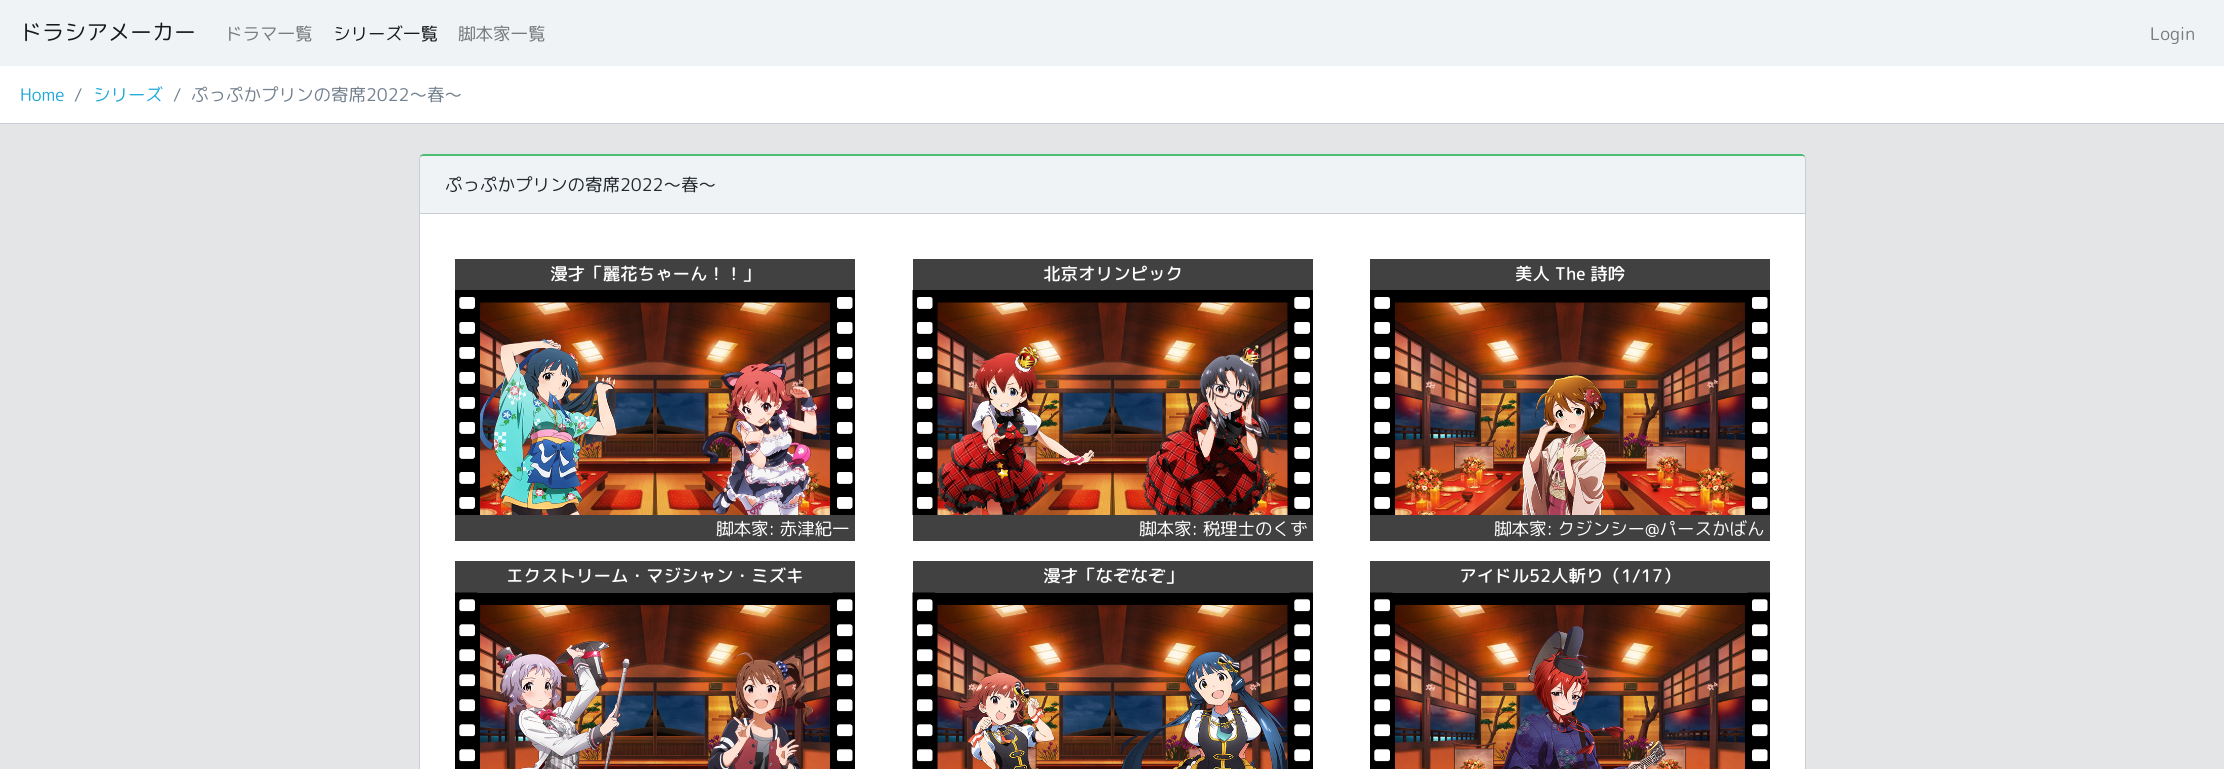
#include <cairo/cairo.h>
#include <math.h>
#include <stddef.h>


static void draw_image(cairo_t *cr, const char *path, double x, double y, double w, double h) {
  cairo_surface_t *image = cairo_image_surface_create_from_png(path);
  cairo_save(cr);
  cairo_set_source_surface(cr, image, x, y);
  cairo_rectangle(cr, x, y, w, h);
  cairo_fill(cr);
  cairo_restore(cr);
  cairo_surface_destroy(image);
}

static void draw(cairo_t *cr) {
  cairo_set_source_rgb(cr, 228 / 255.0, 229 / 255.0, 230 / 255.0);
  cairo_paint(cr);
  cairo_set_source_rgb(cr, 240 / 255.0, 243 / 255.0, 245 / 255.0);
  cairo_rectangle(cr, 0, 0, 2224, 66);
  cairo_fill(cr);
  cairo_set_source_rgb(cr, 1, 1, 1);
  cairo_rectangle(cr, 0, 66, 2224, 57);
  cairo_fill(cr);
  cairo_set_source_rgb(cr, 200 / 255.0, 206 / 255.0, 211 / 255.0);
  cairo_rectangle(cr, 0, 123, 2224, 1);
  cairo_fill(cr);
  cairo_set_source_rgb(cr, 1, 1, 1);
  cairo_new_path(cr);
  cairo_move_to(cr, 424, 156);
  cairo_line_to(cr, 1801, 156);
  cairo_curve_to(cr, 1803, 156, 1805, 157, 1805, 159);
  cairo_line_to(cr, 1805, 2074);
  cairo_curve_to(cr, 1805, 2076, 1803, 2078, 1801, 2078);
  cairo_line_to(cr, 424, 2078);
  cairo_curve_to(cr, 422, 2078, 420, 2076, 420, 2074);
  cairo_line_to(cr, 420, 159);
  cairo_curve_to(cr, 420, 157, 422, 156, 424, 156);
  cairo_close_path(cr);
  cairo_fill(cr);
  cairo_set_source_rgb(cr, 77 / 255.0, 189 / 255.0, 116 / 255.0);
  cairo_new_path(cr);
  cairo_move_to(cr, 424, 154);
  cairo_curve_to(cr, 422, 154, 421, 155, 420, 156);
  cairo_line_to(cr, 421, 157);
  cairo_curve_to(cr, 421, 156, 423, 156, 424, 156);
  cairo_line_to(cr, 1801, 156);
  cairo_curve_to(cr, 1802, 156, 1804, 156, 1804, 157);
  cairo_line_to(cr, 1805, 156);
  cairo_curve_to(cr, 1804, 155, 1803, 154, 1801, 154);
  cairo_close_path(cr);
  cairo_fill(cr);
  cairo_set_source_rgb(cr, 200 / 255.0, 206 / 255.0, 211 / 255.0);
  cairo_new_path(cr);
  cairo_move_to(cr, 1805, 156);
  cairo_line_to(cr, 1806, 159);
  cairo_line_to(cr, 1806, 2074);
  cairo_line_to(cr, 1805, 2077);
  cairo_line_to(cr, 1804, 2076);
  cairo_line_to(cr, 1805, 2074);
  cairo_line_to(cr, 1805, 159);
  cairo_line_to(cr, 1804, 157);
  cairo_close_path(cr);
  cairo_fill(cr);
  cairo_new_path(cr);
  cairo_move_to(cr, 420, 156);
  cairo_line_to(cr, 419, 159);
  cairo_line_to(cr, 419, 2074);
  cairo_line_to(cr, 420, 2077);
  cairo_line_to(cr, 421, 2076);
  cairo_line_to(cr, 420, 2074);
  cairo_line_to(cr, 420, 159);
  cairo_line_to(cr, 421, 157);
  cairo_close_path(cr);
  cairo_fill(cr);
  cairo_set_source_rgb(cr, 240 / 255.0, 243 / 255.0, 245 / 255.0);
  cairo_new_path(cr);
  cairo_move_to(cr, 424, 156);
  cairo_line_to(cr, 1801, 156);
  cairo_curve_to(cr, 1803, 156, 1805, 158, 1805, 160);
  cairo_line_to(cr, 1805, 214);
  cairo_line_to(cr, 420, 214);
  cairo_line_to(cr, 420, 160);
  cairo_curve_to(cr, 420, 158, 422, 156, 424, 156);
  cairo_close_path(cr);
  cairo_fill(cr);
  cairo_set_source_rgb(cr, 200 / 255.0, 206 / 255.0, 211 / 255.0);
  cairo_rectangle(cr, 420, 213, 1385, 1);
  cairo_fill(cr);
  cairo_set_source_rgb(cr, 65 / 255.0, 65 / 255.0, 65 / 255.0);
  cairo_rectangle(cr, 455, 259, 400, 31);
  cairo_fill(cr);
  cairo_set_source_rgb(cr, 0, 0, 0);
  cairo_rectangle(cr, 455, 290, 400, 225);
  cairo_fill(cr);
  draw_image(cr, "images/1.png", 459, 297, 16, 212);
  draw_image(cr, "images/2.png", 480, 302, 350, 213);
  draw_image(cr, "images/3.png", 480, 339, 138, 176);
  draw_image(cr, "images/4.png", 701, 362, 117, 153);
  draw_image(cr, "images/5.png", 837, 297, 16, 212);
  cairo_set_source_rgb(cr, 65 / 255.0, 65 / 255.0, 65 / 255.0);
  cairo_rectangle(cr, 455, 515, 400, 26);
  cairo_fill(cr);
  cairo_rectangle(cr, 913, 259, 400, 31);
  cairo_fill(cr);
  cairo_set_source_rgb(cr, 0, 0, 0);
  cairo_rectangle(cr, 933, 290, 380, 225);
  cairo_fill(cr);
  draw_image(cr, "images/6.png", 912, 290, 21, 225);
  draw_image(cr, "images/7.png", 937, 302, 351, 213);
  draw_image(cr, "images/8.png", 938, 346, 157, 169);
  draw_image(cr, "images/9.png", 1143, 344, 135, 171);
  draw_image(cr, "images/10.png", 1294, 297, 16, 212);
  cairo_set_source_rgb(cr, 65 / 255.0, 65 / 255.0, 65 / 255.0);
  cairo_rectangle(cr, 913, 515, 400, 26);
  cairo_fill(cr);
  cairo_rectangle(cr, 1370, 259, 400, 31);
  cairo_fill(cr);
  cairo_set_source_rgb(cr, 0, 0, 0);
  cairo_rectangle(cr, 1370, 290, 400, 225);
  cairo_fill(cr);
  draw_image(cr, "images/11.png", 1374, 297, 16, 212);
  draw_image(cr, "images/12.png", 1395, 302, 350, 213);
  draw_image(cr, "images/13.png", 1521, 375, 86, 140);
  draw_image(cr, "images/14.png", 1752, 297, 16, 212);
  cairo_set_source_rgb(cr, 65 / 255.0, 65 / 255.0, 65 / 255.0);
  cairo_rectangle(cr, 1370, 515, 400, 26);
  cairo_fill(cr);
  cairo_rectangle(cr, 455, 561, 400, 32);
  cairo_fill(cr);
  cairo_set_source_rgb(cr, 0, 0, 0);
  cairo_rectangle(cr, 455, 593, 400, 176);
  cairo_fill(cr);
  draw_image(cr, "images/15.png", 455, 592, 23, 170);
  draw_image(cr, "images/16.png", 480, 605, 350, 164);
  draw_image(cr, "images/17.png", 496, 640, 134, 129);
  draw_image(cr, "images/18.png", 707, 652, 111, 117);
  draw_image(cr, "images/19.png", 832, 592, 23, 170);
  cairo_set_source_rgb(cr, 65 / 255.0, 65 / 255.0, 65 / 255.0);
  cairo_rectangle(cr, 913, 561, 400, 32);
  cairo_fill(cr);
  cairo_set_source_rgb(cr, 0, 0, 0);
  cairo_rectangle(cr, 935, 593, 378, 176);
  cairo_fill(cr);
  draw_image(cr, "images/20.png", 912, 592, 23, 177);
  draw_image(cr, "images/21.png", 937, 605, 351, 164);
  draw_image(cr, "images/22.png", 958, 672, 97, 97);
  draw_image(cr, "images/23.png", 1120, 651, 168, 118);
  draw_image(cr, "images/24.png", 1290, 592, 23, 170);
  cairo_set_source_rgb(cr, 65 / 255.0, 65 / 255.0, 65 / 255.0);
  cairo_rectangle(cr, 1370, 561, 400, 32);
  cairo_fill(cr);
  cairo_set_source_rgb(cr, 0, 0, 0);
  cairo_rectangle(cr, 1370, 593, 400, 176);
  cairo_fill(cr);
  draw_image(cr, "images/24.png", 1370, 592, 23, 170);
  draw_image(cr, "images/25.png", 1395, 605, 350, 164);
  draw_image(cr, "images/26.png", 1502, 626, 165, 143);
  draw_image(cr, "images/19.png", 1747, 592, 23, 170);
  cairo_select_font_face(cr, "Rounded Mplus 1c", CAIRO_FONT_SLANT_NORMAL, CAIRO_FONT_WEIGHT_NORMAL);
  cairo_set_font_size(cr, 22);
  cairo_set_source_rgb(cr, 24 / 255.0, 24 / 255.0, 25 / 255.0);
  cairo_move_to(cr, 20, 40);
  cairo_show_text(cr, "ドラシアメーカー");
  cairo_set_font_size(cr, 17.5);
  cairo_set_source_rgb(cr, 120 / 255.0, 122 / 255.0, 123 / 255.0);
  cairo_move_to(cr, 225, 40);
  cairo_show_text(cr, "ドラマ一覧");
  cairo_set_source_rgb(cr, 24 / 255.0, 24 / 255.0, 25 / 255.0);
  cairo_move_to(cr, 333, 40);
  cairo_show_text(cr, "シリーズ一覧");
  cairo_set_source_rgb(cr, 120 / 255.0, 122 / 255.0, 123 / 255.0);
  cairo_move_to(cr, 458, 40);
  cairo_show_text(cr, "脚本家一覧");
  cairo_move_to(cr, 2150, 40);
  cairo_show_text(cr, "Login");
  cairo_set_source_rgb(cr, 32 / 255.0, 168 / 255.0, 216 / 255.0);
  cairo_move_to(cr, 20, 101);
  cairo_show_text(cr, "Home");
  cairo_set_source_rgb(cr, 115 / 255.0, 129 / 255.0, 143 / 255.0);
  cairo_move_to(cr, 74, 101);
  cairo_show_text(cr, "/");
  cairo_set_source_rgb(cr, 32 / 255.0, 168 / 255.0, 216 / 255.0);
  cairo_move_to(cr, 93, 101);
  cairo_show_text(cr, "シリーズ");
  cairo_set_source_rgb(cr, 115 / 255.0, 129 / 255.0, 143 / 255.0);
  cairo_move_to(cr, 173, 101);
  cairo_show_text(cr, "/");
  cairo_move_to(cr, 191, 101);
  cairo_show_text(cr, "ぷっぷかプリンの寄席2022〜春〜");
  cairo_set_source_rgb(cr, 35 / 255.0, 40 / 255.0, 44 / 255.0);
  cairo_move_to(cr, 445, 191);
  cairo_show_text(cr, "ぷっぷかプリンの寄席2022〜春〜");
  cairo_select_font_face(cr, "Rounded Mplus 1c Medium", CAIRO_FONT_SLANT_NORMAL, CAIRO_FONT_WEIGHT_NORMAL);
  cairo_set_source_rgb(cr, 1, 1, 1);
  cairo_move_to(cr, 550, 280);
  cairo_show_text(cr, "漫才「麗花ちゃーん！！」");
  cairo_select_font_face(cr, "Rounded Mplus 1c", CAIRO_FONT_SLANT_NORMAL, CAIRO_FONT_WEIGHT_NORMAL);
  cairo_move_to(cr, 716, 535);
  cairo_show_text(cr, "脚本家: 赤津紀一");
  cairo_select_font_face(cr, "Rounded Mplus 1c Medium", CAIRO_FONT_SLANT_NORMAL, CAIRO_FONT_WEIGHT_NORMAL);
  cairo_move_to(cr, 1043, 280);
  cairo_show_text(cr, "北京オリンピック");
  cairo_select_font_face(cr, "Rounded Mplus 1c", CAIRO_FONT_SLANT_NORMAL, CAIRO_FONT_WEIGHT_NORMAL);
  cairo_move_to(cr, 1139, 535);
  cairo_show_text(cr, "脚本家: 税理士のくず");
  cairo_select_font_face(cr, "Rounded Mplus 1c Medium", CAIRO_FONT_SLANT_NORMAL, CAIRO_FONT_WEIGHT_NORMAL);
  cairo_move_to(cr, 1515, 280);
  cairo_show_text(cr, "美人 The 詩吟");
  cairo_select_font_face(cr, "Rounded Mplus 1c", CAIRO_FONT_SLANT_NORMAL, CAIRO_FONT_WEIGHT_NORMAL);
  cairo_move_to(cr, 1494, 535);
  cairo_show_text(cr, "脚本家: クジンシー@パースかばん");
  cairo_select_font_face(cr, "Rounded Mplus 1c Medium", CAIRO_FONT_SLANT_NORMAL, CAIRO_FONT_WEIGHT_NORMAL);
  cairo_move_to(cr, 506, 582);
  cairo_show_text(cr, "エクストリーム・マジシャン・ミズキ");
  cairo_move_to(cr, 1043, 582);
  cairo_show_text(cr, "漫才「なぞなぞ」");
  cairo_move_to(cr, 1459, 582);
  cairo_show_text(cr, "アイドル52人斬り（1/17）");
}

int main(void) {
  cairo_surface_t *surface = cairo_image_surface_create(CAIRO_FORMAT_RGB24, 2224, 769);
  cairo_t *cr = cairo_create(surface);
  cairo_font_options_t *options = cairo_font_options_create();
  cairo_font_options_set_hint_metrics(options, CAIRO_HINT_METRICS_OFF);
  cairo_font_options_set_hint_style(options, CAIRO_HINT_STYLE_NONE);
  cairo_set_font_options(cr, options);
  cairo_set_miter_limit(cr, 4);
  draw(cr);
  cairo_surface_write_to_png(surface, "out.png");
  cairo_font_options_destroy(options);
  cairo_destroy(cr);
  cairo_surface_destroy(surface);
  return 0;
}
